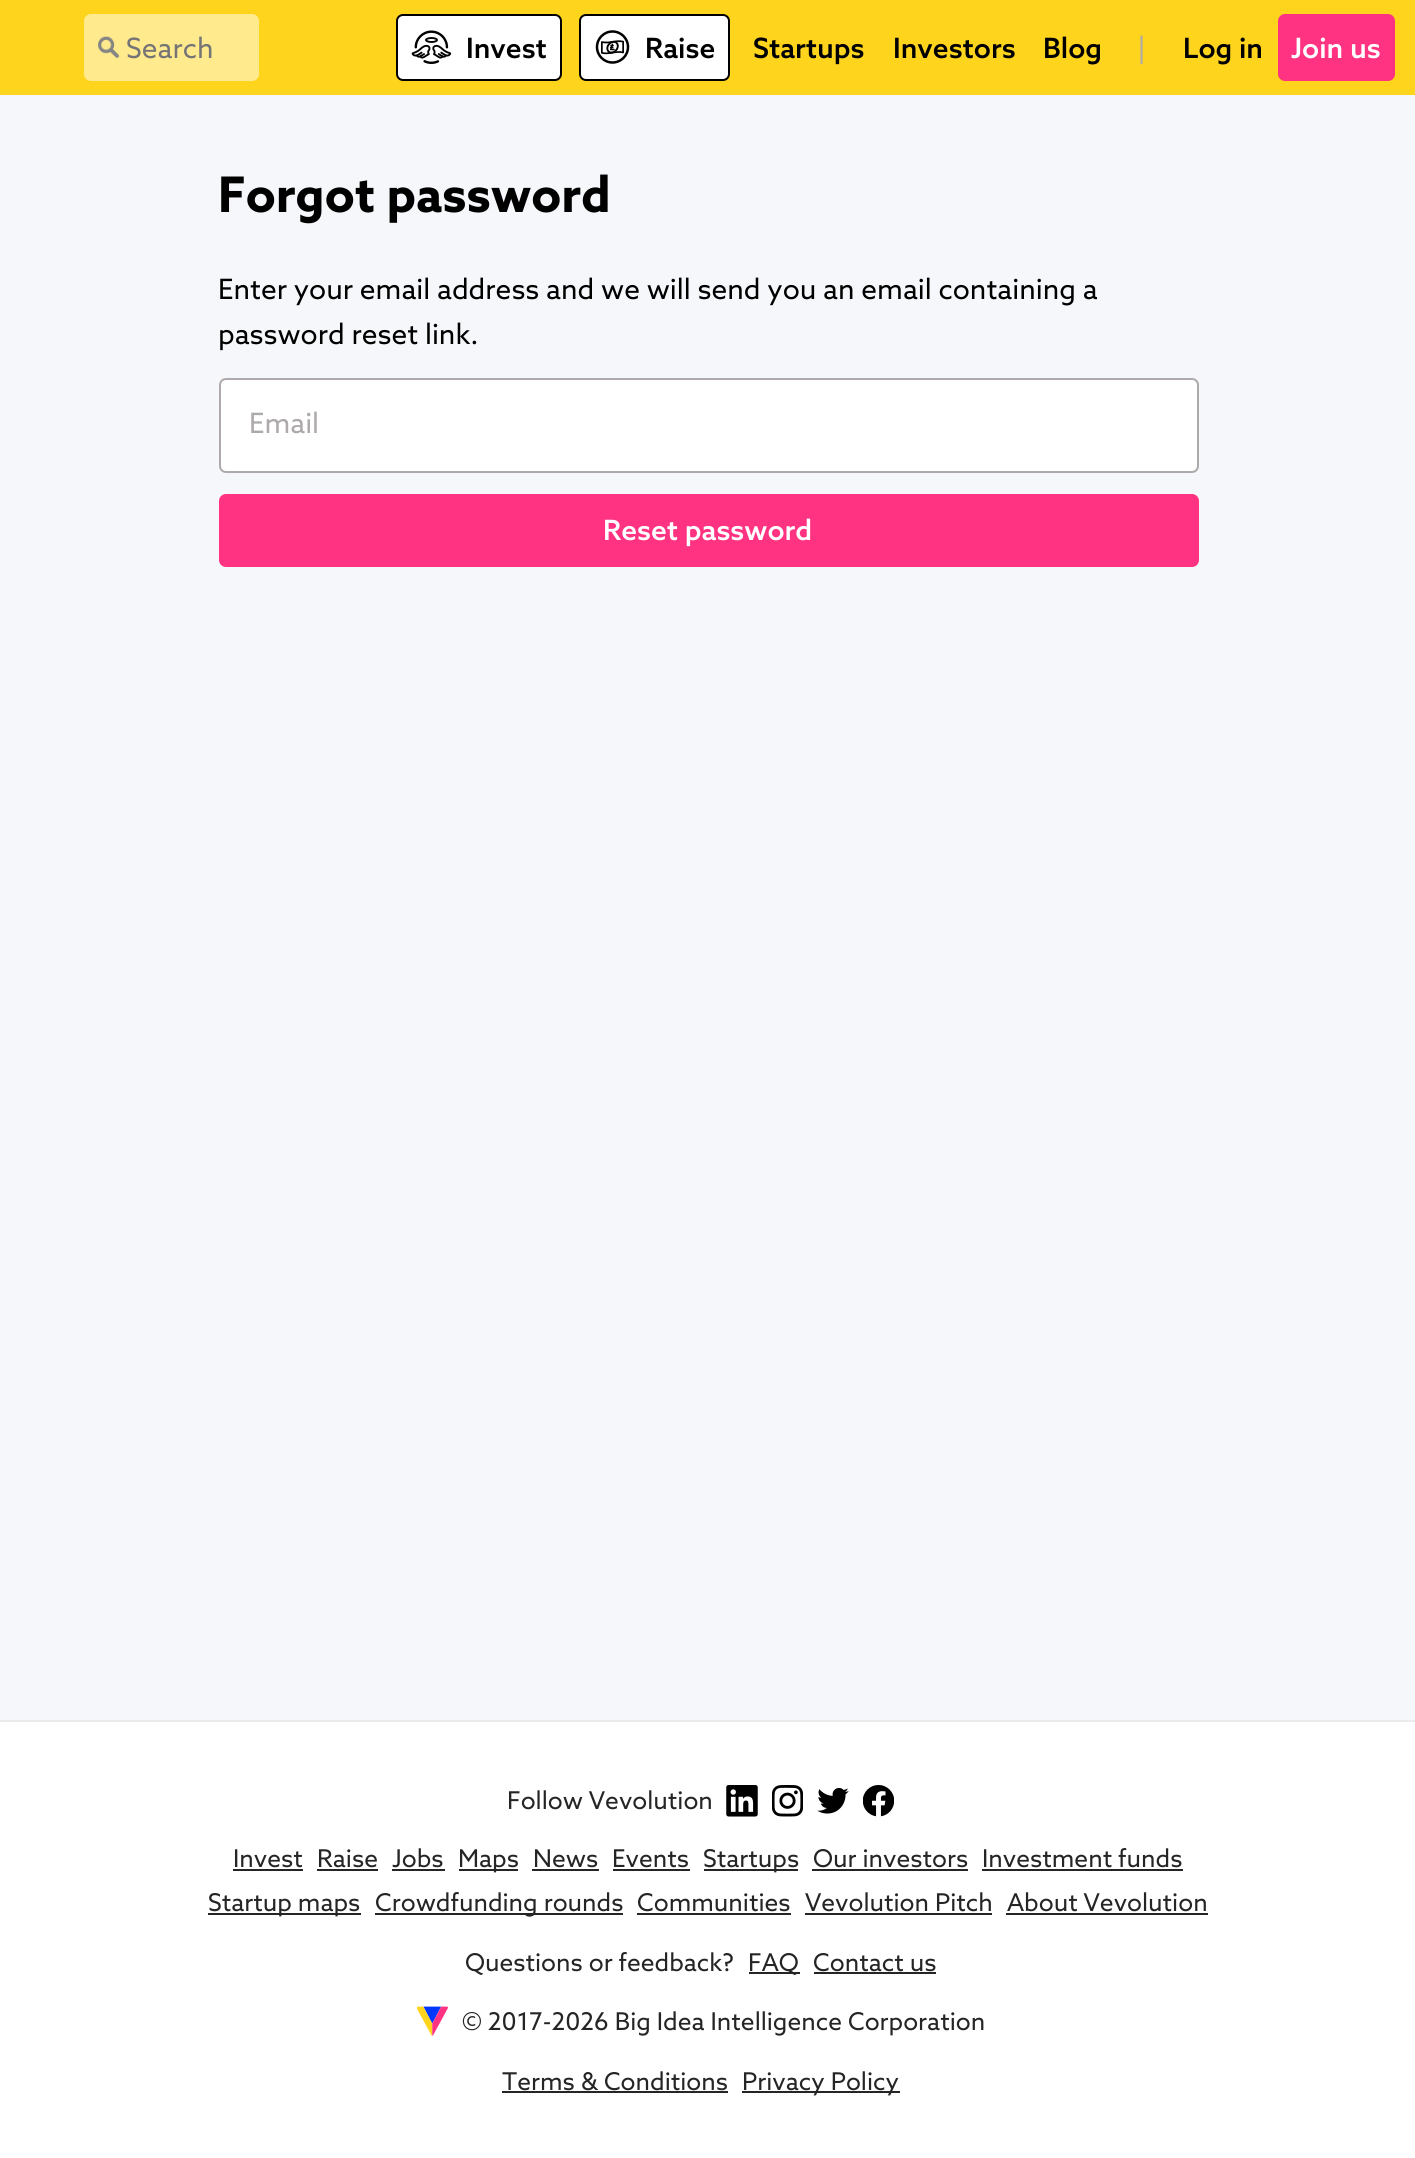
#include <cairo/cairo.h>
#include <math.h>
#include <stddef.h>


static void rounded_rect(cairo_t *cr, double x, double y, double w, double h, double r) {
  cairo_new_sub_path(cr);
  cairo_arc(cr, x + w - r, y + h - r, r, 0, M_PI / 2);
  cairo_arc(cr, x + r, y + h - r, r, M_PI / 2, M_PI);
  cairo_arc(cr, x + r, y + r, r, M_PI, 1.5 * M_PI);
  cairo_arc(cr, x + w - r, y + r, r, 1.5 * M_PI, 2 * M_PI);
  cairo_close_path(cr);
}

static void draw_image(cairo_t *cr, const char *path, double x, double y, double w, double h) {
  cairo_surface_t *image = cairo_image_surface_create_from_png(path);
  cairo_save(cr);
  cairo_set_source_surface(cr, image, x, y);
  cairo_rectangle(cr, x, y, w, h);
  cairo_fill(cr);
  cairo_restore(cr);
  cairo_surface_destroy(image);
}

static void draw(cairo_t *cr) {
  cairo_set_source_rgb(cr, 245 / 255.0, 247 / 255.0, 250 / 255.0);
  cairo_paint(cr);
  cairo_set_source_rgb(cr, 1, 212 / 255.0, 29 / 255.0);
  cairo_rectangle(cr, 0, 0, 1415, 95);
  cairo_fill(cr);
  cairo_set_source_rgb(cr, 1, 234 / 255.0, 142 / 255.0);
  rounded_rect(cr, 84, 14, 175, 67, 7);
  cairo_fill(cr);
  draw_image(cr, "images/1.png", 98, 36, 21, 22);
  cairo_set_source_rgb(cr, 1, 1, 1);
  rounded_rect(cr, 397, 15, 164, 65, 6);
  cairo_fill_preserve(cr);
  cairo_set_source_rgb(cr, 0, 0, 0);
  cairo_stroke(cr);
  draw_image(cr, "images/2.png", 411, 30, 41, 34);
  cairo_set_source_rgb(cr, 1, 1, 1);
  rounded_rect(cr, 580, 15, 149, 65, 6);
  cairo_fill_preserve(cr);
  cairo_set_source_rgb(cr, 0, 0, 0);
  cairo_stroke(cr);
  draw_image(cr, "images/3.png", 595, 30, 35, 34);
  cairo_set_source_rgb(cr, 1, 51 / 255.0, 129 / 255.0);
  rounded_rect(cr, 1278, 14, 117, 67, 7);
  cairo_fill(cr);
  cairo_set_source_rgb(cr, 1, 1, 1);
  rounded_rect(cr, 220, 379, 978, 93, 6);
  cairo_fill_preserve(cr);
  cairo_set_source_rgb(cr, 174 / 255.0, 169 / 255.0, 171 / 255.0);
  cairo_stroke(cr);
  cairo_set_source_rgb(cr, 1, 51 / 255.0, 129 / 255.0);
  rounded_rect(cr, 220, 495, 978, 71, 6);
  cairo_fill_preserve(cr);
  cairo_stroke(cr);
  cairo_set_source_rgb(cr, 1, 1, 1);
  cairo_rectangle(cr, 0, 1722, 1415, 436);
  cairo_fill(cr);
  cairo_set_source_rgb(cr, 235 / 255.0, 235 / 255.0, 238 / 255.0);
  cairo_rectangle(cr, 0, 1720, 1415, 2);
  cairo_fill(cr);
  draw_image(cr, "images/4.png", 726, 1785, 32, 32);
  draw_image(cr, "images/5.png", 772, 1785, 31, 32);
  draw_image(cr, "images/6.png", 817, 1788, 32, 26);
  draw_image(cr, "images/7.png", 863, 1785, 31, 32);
  cairo_set_source_rgb(cr, 37 / 255.0, 37 / 255.0, 37 / 255.0);
  cairo_rectangle(cr, 233, 1869, 70, 2);
  cairo_fill(cr);
  cairo_rectangle(cr, 317, 1869, 61, 2);
  cairo_fill(cr);
  cairo_rectangle(cr, 392, 1869, 53, 2);
  cairo_fill(cr);
  cairo_rectangle(cr, 459, 1869, 59, 2);
  cairo_fill(cr);
  cairo_rectangle(cr, 532, 1869, 67, 2);
  cairo_fill(cr);
  cairo_rectangle(cr, 613, 1869, 77, 2);
  cairo_fill(cr);
  cairo_rectangle(cr, 704, 1869, 94, 2);
  cairo_fill(cr);
  cairo_rectangle(cr, 812, 1869, 156, 2);
  cairo_fill(cr);
  cairo_rectangle(cr, 982, 1869, 201, 2);
  cairo_fill(cr);
  cairo_rectangle(cr, 208, 1913, 153, 2);
  cairo_fill(cr);
  cairo_rectangle(cr, 375, 1913, 248, 2);
  cairo_fill(cr);
  cairo_rectangle(cr, 637, 1913, 154, 2);
  cairo_fill(cr);
  cairo_rectangle(cr, 805, 1913, 187, 2);
  cairo_fill(cr);
  cairo_rectangle(cr, 1006, 1913, 202, 2);
  cairo_fill(cr);
  cairo_rectangle(cr, 749, 1972, 51, 2);
  cairo_fill(cr);
  cairo_rectangle(cr, 814, 1972, 122, 2);
  cairo_fill(cr);
  draw_image(cr, "images/8.png", 417, 2006, 31, 30);
  cairo_rectangle(cr, 502, 2091, 226, 2);
  cairo_fill(cr);
  cairo_rectangle(cr, 742, 2091, 158, 2);
  cairo_fill(cr);
  cairo_select_font_face(cr, "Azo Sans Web", CAIRO_FONT_SLANT_NORMAL, CAIRO_FONT_WEIGHT_NORMAL);
  cairo_set_font_size(cr, 28);
  cairo_set_source_rgb(cr, 117 / 255.0, 117 / 255.0, 117 / 255.0);
  cairo_move_to(cr, 126, 58);
  cairo_show_text(cr, "Search");
  cairo_select_font_face(cr, "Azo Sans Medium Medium", CAIRO_FONT_SLANT_NORMAL, CAIRO_FONT_WEIGHT_NORMAL);
  cairo_set_source_rgb(cr, 0, 0, 0);
  cairo_move_to(cr, 466, 58);
  cairo_show_text(cr, "Invest");
  cairo_move_to(cr, 645, 58);
  cairo_show_text(cr, "Raise");
  cairo_move_to(cr, 753, 58);
  cairo_show_text(cr, "Startups");
  cairo_move_to(cr, 893, 58);
  cairo_show_text(cr, "Investors");
  cairo_move_to(cr, 1043, 58);
  cairo_show_text(cr, "Blog");
  cairo_select_font_face(cr, "Azo Sans Web", CAIRO_FONT_SLANT_NORMAL, CAIRO_FONT_WEIGHT_NORMAL);
  cairo_set_source_rgb(cr, 174 / 255.0, 169 / 255.0, 171 / 255.0);
  cairo_move_to(cr, 1137, 58);
  cairo_show_text(cr, "|");
  cairo_select_font_face(cr, "Azo Sans Medium Medium", CAIRO_FONT_SLANT_NORMAL, CAIRO_FONT_WEIGHT_NORMAL);
  cairo_set_source_rgb(cr, 0, 0, 0);
  cairo_move_to(cr, 1183, 58);
  cairo_show_text(cr, "Log in");
  cairo_set_source_rgb(cr, 1, 1, 1);
  cairo_move_to(cr, 1291, 58);
  cairo_show_text(cr, "Join us");
  cairo_select_font_face(cr, "Azo Sans Web", CAIRO_FONT_SLANT_NORMAL, CAIRO_FONT_WEIGHT_BOLD);
  cairo_set_font_size(cr, 49);
  cairo_set_source_rgb(cr, 0, 0, 0);
  cairo_move_to(cr, 218, 212);
  cairo_show_text(cr, "Forgot password");
  cairo_select_font_face(cr, "Azo Sans Web", CAIRO_FONT_SLANT_NORMAL, CAIRO_FONT_WEIGHT_NORMAL);
  cairo_set_font_size(cr, 28);
  cairo_move_to(cr, 218, 299);
  cairo_show_text(cr, "Enter your email address and we will send you an email containing a");
  cairo_move_to(cr, 218, 344);
  cairo_show_text(cr, "password reset link.");
  cairo_set_source_rgb(cr, 174 / 255.0, 169 / 255.0, 171 / 255.0);
  cairo_move_to(cr, 249, 433);
  cairo_show_text(cr, "Email");
  cairo_select_font_face(cr, "Azo Sans Medium Medium", CAIRO_FONT_SLANT_NORMAL, CAIRO_FONT_WEIGHT_NORMAL);
  cairo_set_source_rgb(cr, 1, 1, 1);
  cairo_move_to(cr, 603, 540);
  cairo_show_text(cr, "Reset password");
  cairo_select_font_face(cr, "Azo Sans Web", CAIRO_FONT_SLANT_NORMAL, CAIRO_FONT_WEIGHT_NORMAL);
  cairo_set_font_size(cr, 24.5);
  cairo_set_source_rgb(cr, 37 / 255.0, 37 / 255.0, 37 / 255.0);
  cairo_move_to(cr, 507, 1809);
  cairo_show_text(cr, "Follow Vevolution");
  cairo_move_to(cr, 233, 1867);
  cairo_show_text(cr, "Invest");
  cairo_move_to(cr, 317, 1867);
  cairo_show_text(cr, "Raise");
  cairo_move_to(cr, 392, 1867);
  cairo_show_text(cr, "Jobs");
  cairo_move_to(cr, 458, 1867);
  cairo_show_text(cr, "Maps");
  cairo_move_to(cr, 533, 1867);
  cairo_show_text(cr, "News");
  cairo_move_to(cr, 612, 1867);
  cairo_show_text(cr, "Events");
  cairo_move_to(cr, 703, 1867);
  cairo_show_text(cr, "Startups");
  cairo_move_to(cr, 813, 1867);
  cairo_show_text(cr, "Our investors");
  cairo_move_to(cr, 982, 1867);
  cairo_show_text(cr, "Investment funds");
  cairo_move_to(cr, 208, 1911);
  cairo_show_text(cr, "Startup maps");
  cairo_move_to(cr, 375, 1911);
  cairo_show_text(cr, "Crowdfunding rounds");
  cairo_move_to(cr, 637, 1911);
  cairo_show_text(cr, "Communities");
  cairo_move_to(cr, 805, 1911);
  cairo_show_text(cr, "Vevolution Pitch");
  cairo_move_to(cr, 1007, 1911);
  cairo_show_text(cr, "About Vevolution");
  cairo_move_to(cr, 465, 1971);
  cairo_show_text(cr, "Questions or feedback?");
  cairo_move_to(cr, 748, 1971);
  cairo_show_text(cr, "FAQ");
  cairo_move_to(cr, 813, 1971);
  cairo_show_text(cr, "Contact us");
  cairo_move_to(cr, 462, 2030);
  cairo_show_text(cr, "© 2017-2026 Big Idea Intelligence Corporation");
  cairo_move_to(cr, 502, 2090);
  cairo_show_text(cr, "Terms & Conditions");
  cairo_move_to(cr, 742, 2090);
  cairo_show_text(cr, "Privacy Policy");
}

int main(void) {
  cairo_surface_t *surface = cairo_image_surface_create(CAIRO_FORMAT_RGB24, 1415, 2158);
  cairo_t *cr = cairo_create(surface);
  cairo_font_options_t *options = cairo_font_options_create();
  cairo_font_options_set_hint_metrics(options, CAIRO_HINT_METRICS_OFF);
  cairo_font_options_set_hint_style(options, CAIRO_HINT_STYLE_NONE);
  cairo_set_font_options(cr, options);
  cairo_set_miter_limit(cr, 4);
  draw(cr);
  cairo_surface_write_to_png(surface, "out.png");
  cairo_font_options_destroy(options);
  cairo_destroy(cr);
  cairo_surface_destroy(surface);
  return 0;
}
